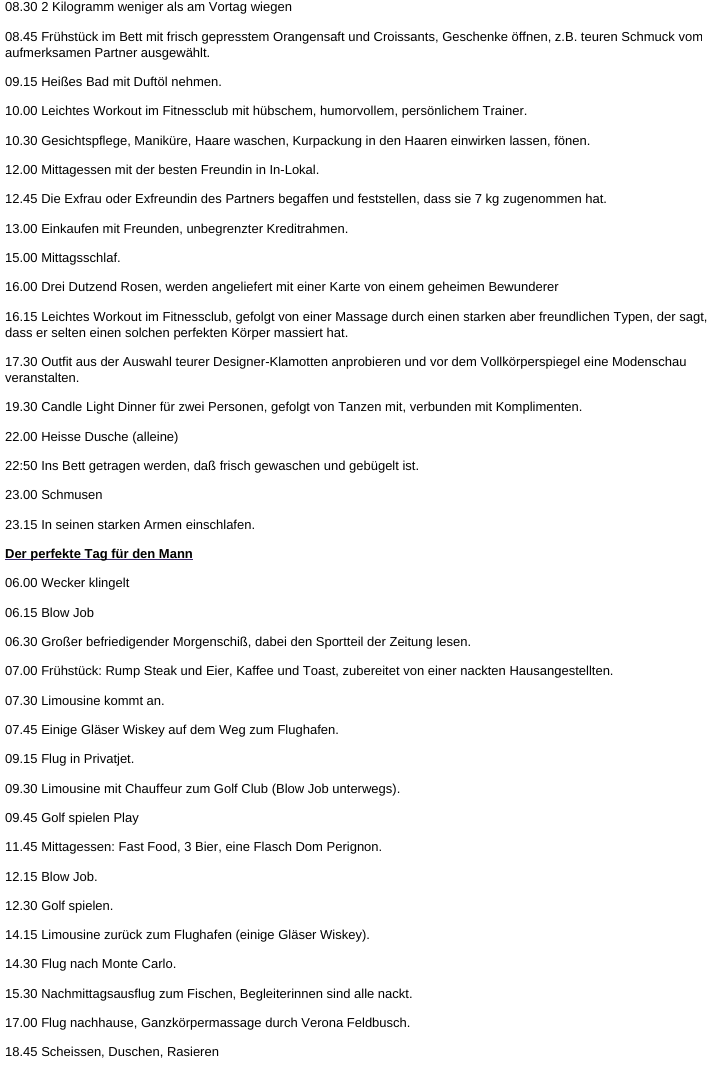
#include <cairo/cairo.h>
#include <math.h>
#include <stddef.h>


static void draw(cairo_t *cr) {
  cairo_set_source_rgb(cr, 1, 1, 1);
  cairo_paint(cr);
  cairo_set_source_rgb(cr, 55 / 255.0, 35 / 255.0, 112 / 255.0);
  cairo_rectangle(cr, 5, 559, 188, 1);
  cairo_fill(cr);
  cairo_select_font_face(cr, "Liberation Sans", CAIRO_FONT_SLANT_NORMAL, CAIRO_FONT_WEIGHT_NORMAL);
  cairo_set_font_size(cr, 13);
  cairo_set_source_rgb(cr, 0, 0, 0);
  cairo_move_to(cr, 5, 11);
  cairo_show_text(cr, "08.30 2 Kilogramm weniger als am Vortag wiegen");
  cairo_move_to(cr, 5, 41);
  cairo_show_text(cr, "08.45 Frühstück im Bett mit frisch gepresstem Orangensaft und Croissants, Geschenke öffnen, z.B. teuren Schmuck vom");
  cairo_move_to(cr, 5, 57);
  cairo_show_text(cr, "aufmerksamen Partner ausgewählt.");
  cairo_move_to(cr, 5, 86);
  cairo_show_text(cr, "09.15 Heißes Bad mit Duftöl nehmen.");
  cairo_move_to(cr, 5, 115);
  cairo_show_text(cr, "10.00 Leichtes Workout im Fitnessclub mit hübschem, humorvollem, persönlichem Trainer.");
  cairo_move_to(cr, 5, 145);
  cairo_show_text(cr, "10.30 Gesichtspflege, Maniküre, Haare waschen, Kurpackung in den Haaren einwirken lassen, fönen.");
  cairo_move_to(cr, 5, 174);
  cairo_show_text(cr, "12.00 Mittagessen mit der besten Freundin in In-Lokal.");
  cairo_move_to(cr, 5, 203);
  cairo_show_text(cr, "12.45 Die Exfrau oder Exfreundin des Partners begaffen und feststellen, dass sie 7 kg zugenommen hat.");
  cairo_move_to(cr, 5, 233);
  cairo_show_text(cr, "13.00 Einkaufen mit Freunden, unbegrenzter Kreditrahmen.");
  cairo_move_to(cr, 5, 262);
  cairo_show_text(cr, "15.00 Mittagsschlaf.");
  cairo_move_to(cr, 5, 291);
  cairo_show_text(cr, "16.00 Drei Dutzend Rosen, werden angeliefert mit einer Karte von einem geheimen Bewunderer");
  cairo_move_to(cr, 5, 321);
  cairo_show_text(cr, "16.15 Leichtes Workout im Fitnessclub, gefolgt von einer Massage durch einen starken aber freundlichen Typen, der sagt,");
  cairo_move_to(cr, 5, 337);
  cairo_show_text(cr, "dass er selten einen solchen perfekten Körper massiert hat.");
  cairo_move_to(cr, 5, 366);
  cairo_show_text(cr, "17.30 Outfit aus der Auswahl teurer Designer-Klamotten anprobieren und vor dem Vollkörperspiegel eine Modenschau");
  cairo_move_to(cr, 5, 382);
  cairo_show_text(cr, "veranstalten.");
  cairo_move_to(cr, 5, 411);
  cairo_show_text(cr, "19.30 Candle Light Dinner für zwei Personen, gefolgt von Tanzen mit, verbunden mit Komplimenten.");
  cairo_move_to(cr, 5, 441);
  cairo_show_text(cr, "22.00 Heisse Dusche (alleine)");
  cairo_move_to(cr, 5, 470);
  cairo_show_text(cr, "22:50 Ins Bett getragen werden, daß frisch gewaschen und gebügelt ist.");
  cairo_move_to(cr, 5, 499);
  cairo_show_text(cr, "23.00 Schmusen");
  cairo_move_to(cr, 5, 529);
  cairo_show_text(cr, "23.15 In seinen starken Armen einschlafen.");
  cairo_select_font_face(cr, "Liberation Sans", CAIRO_FONT_SLANT_NORMAL, CAIRO_FONT_WEIGHT_BOLD);
  cairo_move_to(cr, 5, 558);
  cairo_show_text(cr, "Der perfekte Tag für den Mann");
  cairo_select_font_face(cr, "Liberation Sans", CAIRO_FONT_SLANT_NORMAL, CAIRO_FONT_WEIGHT_NORMAL);
  cairo_move_to(cr, 5, 587);
  cairo_show_text(cr, "06.00 Wecker klingelt");
  cairo_move_to(cr, 5, 617);
  cairo_show_text(cr, "06.15 Blow Job");
  cairo_move_to(cr, 5, 646);
  cairo_show_text(cr, "06.30 Großer befriedigender Morgenschiß, dabei den Sportteil der Zeitung lesen.");
  cairo_move_to(cr, 5, 675);
  cairo_show_text(cr, "07.00 Frühstück: Rump Steak und Eier, Kaffee und Toast, zubereitet von einer nackten Hausangestellten.");
  cairo_move_to(cr, 5, 705);
  cairo_show_text(cr, "07.30 Limousine kommt an.");
  cairo_move_to(cr, 5, 734);
  cairo_show_text(cr, "07.45 Einige Gläser Wiskey auf dem Weg zum Flughafen.");
  cairo_move_to(cr, 5, 763);
  cairo_show_text(cr, "09.15 Flug in Privatjet.");
  cairo_move_to(cr, 5, 793);
  cairo_show_text(cr, "09.30 Limousine mit Chauffeur zum Golf Club (Blow Job unterwegs).");
  cairo_move_to(cr, 5, 822);
  cairo_show_text(cr, "09.45 Golf spielen Play");
  cairo_move_to(cr, 5, 851);
  cairo_show_text(cr, "11.45 Mittagessen: Fast Food, 3 Bier, eine Flasch Dom Perignon.");
  cairo_move_to(cr, 5, 881);
  cairo_show_text(cr, "12.15 Blow Job.");
  cairo_move_to(cr, 5, 910);
  cairo_show_text(cr, "12.30 Golf spielen.");
  cairo_move_to(cr, 5, 939);
  cairo_show_text(cr, "14.15 Limousine zurück zum Flughafen (einige Gläser Wiskey).");
  cairo_move_to(cr, 5, 968);
  cairo_show_text(cr, "14.30 Flug nach Monte Carlo.");
  cairo_move_to(cr, 5, 998);
  cairo_show_text(cr, "15.30 Nachmittagsausflug zum Fischen, Begleiterinnen sind alle nackt.");
  cairo_move_to(cr, 5, 1027);
  cairo_show_text(cr, "17.00 Flug nachhause, Ganzkörpermassage durch Verona Feldbusch.");
  cairo_move_to(cr, 5, 1056);
  cairo_show_text(cr, "18.45 Scheissen, Duschen, Rasieren");
}

int main(void) {
  cairo_surface_t *surface = cairo_image_surface_create(CAIRO_FORMAT_RGB24, 723, 1070);
  cairo_t *cr = cairo_create(surface);
  cairo_font_options_t *options = cairo_font_options_create();
  cairo_font_options_set_hint_metrics(options, CAIRO_HINT_METRICS_OFF);
  cairo_font_options_set_hint_style(options, CAIRO_HINT_STYLE_NONE);
  cairo_set_font_options(cr, options);
  cairo_set_miter_limit(cr, 4);
  draw(cr);
  cairo_surface_write_to_png(surface, "out.png");
  cairo_font_options_destroy(options);
  cairo_destroy(cr);
  cairo_surface_destroy(surface);
  return 0;
}
